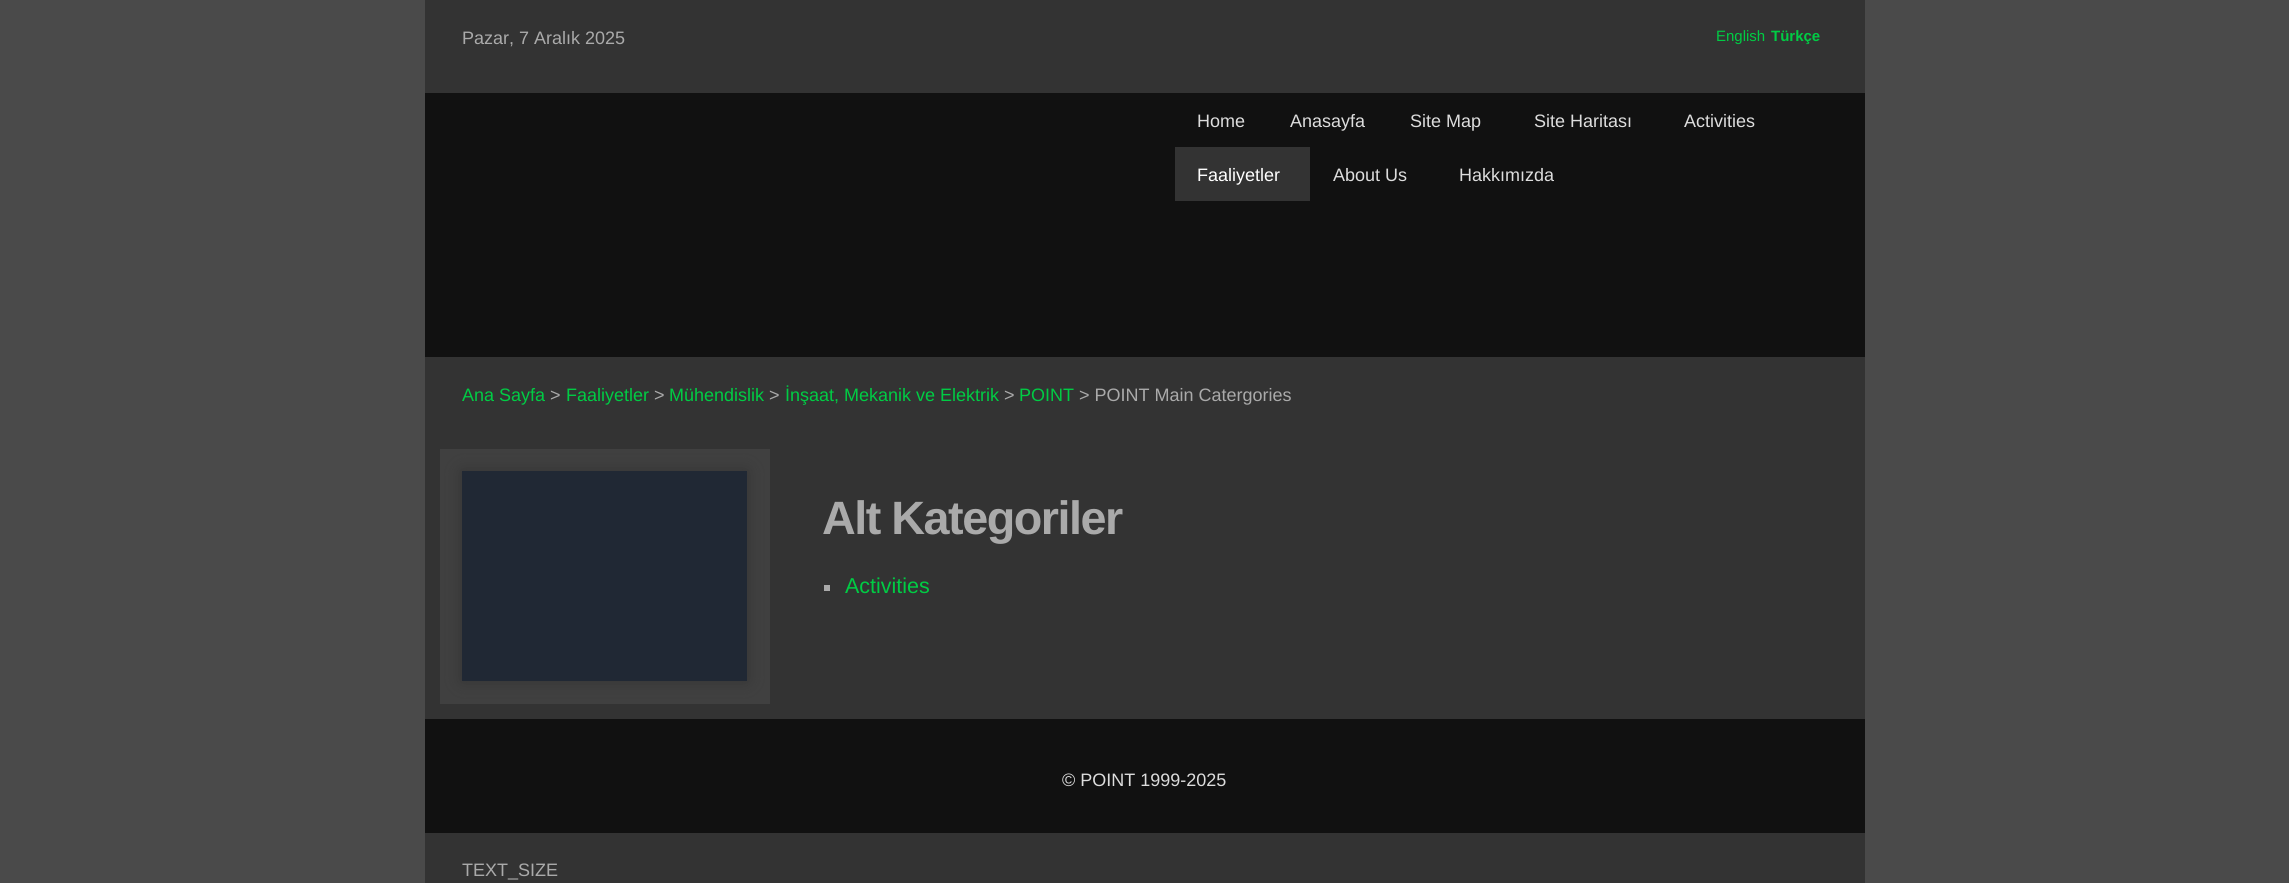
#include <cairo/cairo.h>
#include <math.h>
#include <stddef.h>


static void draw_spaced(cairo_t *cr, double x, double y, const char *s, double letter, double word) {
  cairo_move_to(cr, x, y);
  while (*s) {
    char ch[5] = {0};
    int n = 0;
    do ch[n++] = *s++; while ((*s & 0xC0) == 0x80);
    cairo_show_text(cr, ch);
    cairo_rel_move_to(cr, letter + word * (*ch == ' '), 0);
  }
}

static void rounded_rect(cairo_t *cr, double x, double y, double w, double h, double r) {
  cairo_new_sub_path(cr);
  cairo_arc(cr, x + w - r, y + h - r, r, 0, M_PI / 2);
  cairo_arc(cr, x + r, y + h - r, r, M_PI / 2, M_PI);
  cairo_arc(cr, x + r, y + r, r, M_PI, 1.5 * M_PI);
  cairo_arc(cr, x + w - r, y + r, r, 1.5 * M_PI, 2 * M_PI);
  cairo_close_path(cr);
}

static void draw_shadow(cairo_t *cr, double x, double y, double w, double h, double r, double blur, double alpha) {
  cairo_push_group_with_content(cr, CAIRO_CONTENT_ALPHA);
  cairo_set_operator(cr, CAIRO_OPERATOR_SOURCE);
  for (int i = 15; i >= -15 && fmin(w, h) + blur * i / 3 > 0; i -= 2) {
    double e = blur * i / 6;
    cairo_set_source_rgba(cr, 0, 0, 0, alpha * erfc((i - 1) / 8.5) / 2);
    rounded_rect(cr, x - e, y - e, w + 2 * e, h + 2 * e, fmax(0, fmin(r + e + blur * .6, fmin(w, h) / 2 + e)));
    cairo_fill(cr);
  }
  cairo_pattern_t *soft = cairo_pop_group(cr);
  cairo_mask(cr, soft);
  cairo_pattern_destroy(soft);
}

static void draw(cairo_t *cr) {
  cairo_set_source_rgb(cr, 74 / 255.0, 74 / 255.0, 74 / 255.0);
  cairo_paint(cr);
  cairo_set_source_rgb(cr, 51 / 255.0, 51 / 255.0, 51 / 255.0);
  cairo_rectangle(cr, 425, 0, 1440, 93);
  cairo_fill(cr);
  cairo_set_source_rgb(cr, 17 / 255.0, 17 / 255.0, 17 / 255.0);
  cairo_rectangle(cr, 425, 93, 1440, 264);
  cairo_fill(cr);
  cairo_set_source_rgb(cr, 51 / 255.0, 51 / 255.0, 51 / 255.0);
  cairo_rectangle(cr, 1175, 147, 135, 54);
  cairo_fill(cr);
  cairo_rectangle(cr, 425, 357, 1440, 362);
  cairo_fill(cr);
  cairo_set_source_rgb(cr, 64 / 255.0, 64 / 255.0, 64 / 255.0);
  cairo_rectangle(cr, 440, 449, 330, 255);
  cairo_fill(cr);
  cairo_set_source_rgb(cr, 51 / 255.0, 51 / 255.0, 51 / 255.0);
  draw_shadow(cr, 462, 471, 285, 210, 0, 7.5, 1);
  cairo_set_source_rgb(cr, 32 / 255.0, 40 / 255.0, 52 / 255.0);
  cairo_rectangle(cr, 462, 471, 285, 210);
  cairo_fill(cr);
  cairo_set_source_rgb(cr, 170 / 255.0, 170 / 255.0, 170 / 255.0);
  cairo_rectangle(cr, 824, 585, 6, 6);
  cairo_fill(cr);
  cairo_set_source_rgb(cr, 17 / 255.0, 17 / 255.0, 17 / 255.0);
  cairo_rectangle(cr, 425, 719, 1440, 114);
  cairo_fill(cr);
  cairo_set_source_rgb(cr, 51 / 255.0, 51 / 255.0, 51 / 255.0);
  cairo_rectangle(cr, 425, 833, 1440, 50);
  cairo_fill(cr);
  cairo_select_font_face(cr, "Liberation Sans", CAIRO_FONT_SLANT_NORMAL, CAIRO_FONT_WEIGHT_NORMAL);
  cairo_set_font_size(cr, 18);
  cairo_set_source_rgb(cr, 170 / 255.0, 170 / 255.0, 170 / 255.0);
  cairo_move_to(cr, 462, 44);
  cairo_show_text(cr, "Pazar, 7 Aralık 2025");
  cairo_set_font_size(cr, 15);
  cairo_set_source_rgb(cr, 0, 204 / 255.0, 68 / 255.0);
  cairo_move_to(cr, 1716, 41);
  cairo_show_text(cr, "English");
  cairo_select_font_face(cr, "Liberation Sans", CAIRO_FONT_SLANT_NORMAL, CAIRO_FONT_WEIGHT_BOLD);
  cairo_move_to(cr, 1771, 41);
  cairo_show_text(cr, "Türkçe");
  cairo_select_font_face(cr, "Liberation Sans", CAIRO_FONT_SLANT_NORMAL, CAIRO_FONT_WEIGHT_NORMAL);
  cairo_set_font_size(cr, 18);
  cairo_set_source_rgb(cr, 221 / 255.0, 221 / 255.0, 221 / 255.0);
  cairo_move_to(cr, 1197, 127);
  cairo_show_text(cr, "Home");
  cairo_move_to(cr, 1290, 127);
  cairo_show_text(cr, "Anasayfa");
  cairo_move_to(cr, 1410, 127);
  cairo_show_text(cr, "Site Map");
  cairo_move_to(cr, 1534, 127);
  cairo_show_text(cr, "Site Haritası");
  cairo_move_to(cr, 1684, 127);
  cairo_show_text(cr, "Activities");
  cairo_set_source_rgb(cr, 1, 1, 1);
  cairo_move_to(cr, 1197, 181);
  cairo_show_text(cr, "Faaliyetler");
  cairo_set_source_rgb(cr, 221 / 255.0, 221 / 255.0, 221 / 255.0);
  cairo_move_to(cr, 1333, 181);
  cairo_show_text(cr, "About Us");
  cairo_move_to(cr, 1459, 181);
  cairo_show_text(cr, "Hakkımızda");
  cairo_set_source_rgb(cr, 0, 204 / 255.0, 68 / 255.0);
  cairo_move_to(cr, 462, 401);
  cairo_show_text(cr, "Ana Sayfa");
  cairo_set_source_rgb(cr, 170 / 255.0, 170 / 255.0, 170 / 255.0);
  cairo_move_to(cr, 550, 401);
  cairo_show_text(cr, ">");
  cairo_set_source_rgb(cr, 0, 204 / 255.0, 68 / 255.0);
  cairo_move_to(cr, 566, 401);
  cairo_show_text(cr, "Faaliyetler");
  cairo_set_source_rgb(cr, 170 / 255.0, 170 / 255.0, 170 / 255.0);
  cairo_move_to(cr, 654, 401);
  cairo_show_text(cr, ">");
  cairo_set_source_rgb(cr, 0, 204 / 255.0, 68 / 255.0);
  cairo_move_to(cr, 669, 401);
  cairo_show_text(cr, "Mühendislik");
  cairo_set_source_rgb(cr, 170 / 255.0, 170 / 255.0, 170 / 255.0);
  cairo_move_to(cr, 769, 401);
  cairo_show_text(cr, ">");
  cairo_set_source_rgb(cr, 0, 204 / 255.0, 68 / 255.0);
  cairo_move_to(cr, 785, 401);
  cairo_show_text(cr, "İnşaat, Mekanik ve Elektrik");
  cairo_set_source_rgb(cr, 170 / 255.0, 170 / 255.0, 170 / 255.0);
  cairo_move_to(cr, 1004, 401);
  cairo_show_text(cr, ">");
  cairo_set_source_rgb(cr, 0, 204 / 255.0, 68 / 255.0);
  cairo_move_to(cr, 1019, 401);
  cairo_show_text(cr, "POINT");
  cairo_set_source_rgb(cr, 170 / 255.0, 170 / 255.0, 170 / 255.0);
  cairo_move_to(cr, 1079, 401);
  cairo_show_text(cr, "> POINT Main Catergories");
  cairo_select_font_face(cr, "Liberation Sans", CAIRO_FONT_SLANT_NORMAL, CAIRO_FONT_WEIGHT_BOLD);
  cairo_set_font_size(cr, 46.75);
  draw_spaced(cr, 822, 534, "Alt Kategoriler", -1.5, 0);
  cairo_select_font_face(cr, "Liberation Sans", CAIRO_FONT_SLANT_NORMAL, CAIRO_FONT_WEIGHT_NORMAL);
  cairo_set_font_size(cr, 21.5);
  cairo_set_source_rgb(cr, 0, 204 / 255.0, 68 / 255.0);
  cairo_move_to(cr, 845, 593);
  cairo_show_text(cr, "Activities");
  cairo_set_font_size(cr, 18);
  cairo_set_source_rgb(cr, 221 / 255.0, 221 / 255.0, 221 / 255.0);
  cairo_move_to(cr, 1062, 786);
  cairo_show_text(cr, "© POINT 1999-2025");
  cairo_set_source_rgb(cr, 170 / 255.0, 170 / 255.0, 170 / 255.0);
  cairo_move_to(cr, 462, 876);
  cairo_show_text(cr, "TEXT_SIZE");
}

int main(void) {
  cairo_surface_t *surface = cairo_image_surface_create(CAIRO_FORMAT_RGB24, 2289, 883);
  cairo_t *cr = cairo_create(surface);
  cairo_font_options_t *options = cairo_font_options_create();
  cairo_font_options_set_hint_metrics(options, CAIRO_HINT_METRICS_OFF);
  cairo_font_options_set_hint_style(options, CAIRO_HINT_STYLE_NONE);
  cairo_set_font_options(cr, options);
  cairo_set_miter_limit(cr, 4);
  draw(cr);
  cairo_surface_write_to_png(surface, "out.png");
  cairo_font_options_destroy(options);
  cairo_destroy(cr);
  cairo_surface_destroy(surface);
  return 0;
}
